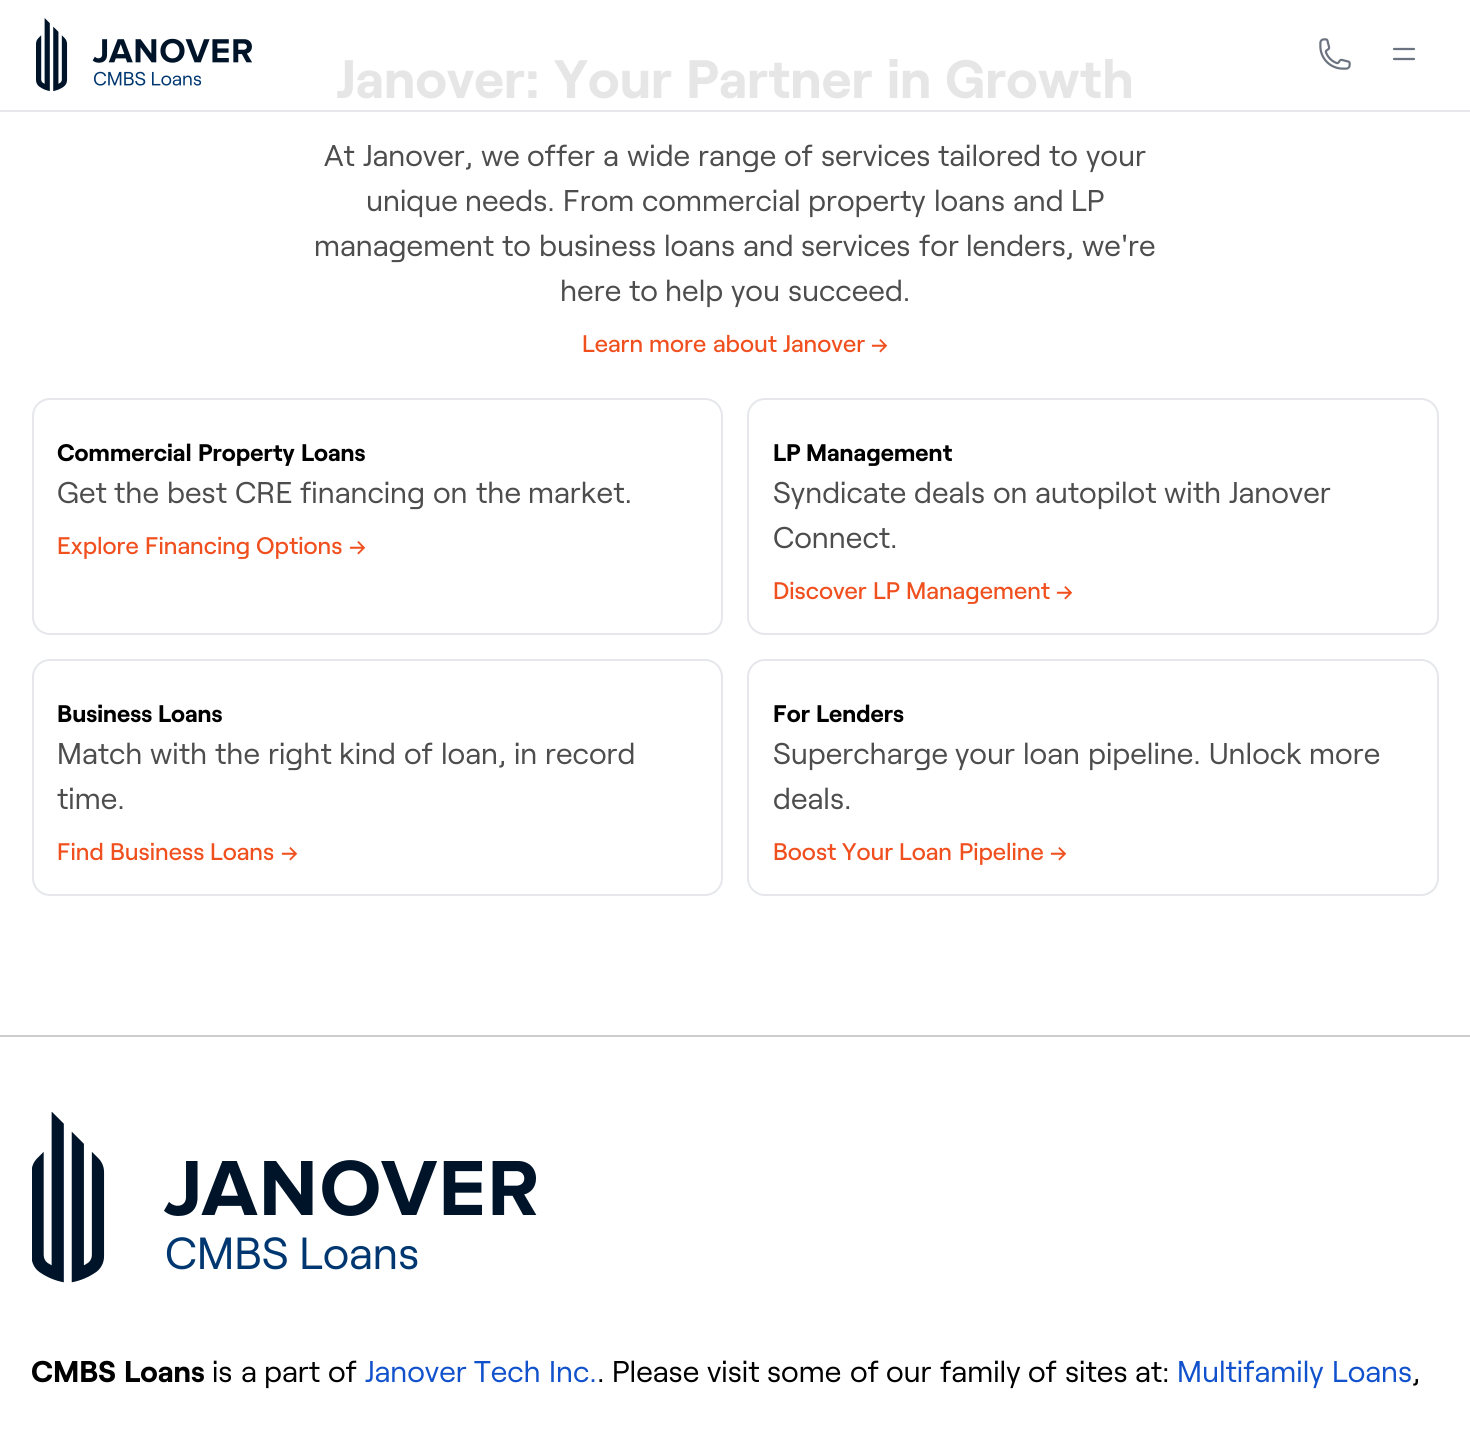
#include <cairo/cairo.h>
#include <math.h>
#include <stddef.h>


static void rounded_rect(cairo_t *cr, double x, double y, double w, double h, double r) {
  cairo_new_sub_path(cr);
  cairo_arc(cr, x + w - r, y + h - r, r, 0, M_PI / 2);
  cairo_arc(cr, x + r, y + h - r, r, M_PI / 2, M_PI);
  cairo_arc(cr, x + r, y + r, r, M_PI, 1.5 * M_PI);
  cairo_arc(cr, x + w - r, y + r, r, 1.5 * M_PI, 2 * M_PI);
  cairo_close_path(cr);
}

static void draw_image(cairo_t *cr, const char *path, double x, double y, double w, double h) {
  cairo_surface_t *image = cairo_image_surface_create_from_png(path);
  cairo_save(cr);
  cairo_set_source_surface(cr, image, x, y);
  cairo_rectangle(cr, x, y, w, h);
  cairo_fill(cr);
  cairo_restore(cr);
  cairo_surface_destroy(image);
}

static void draw(cairo_t *cr) {
  cairo_set_source_rgb(cr, 1, 1, 1);
  cairo_paint(cr);
  cairo_set_source_rgb(cr, 229 / 255.0, 231 / 255.0, 235 / 255.0);
  cairo_rectangle(cr, 0, 110, 1470, 2);
  cairo_fill(cr);
  draw_image(cr, "images/1.png", 36, 18, 216, 74);
  draw_image(cr, "images/2.png", 1319, 38, 32, 32);
  cairo_new_path(cr);
  cairo_move_to(cr, 1394, 49);
  cairo_line_to(cr, 1414, 49);
  cairo_move_to(cr, 1394, 59);
  cairo_line_to(cr, 1414, 59);
  cairo_set_source_rgb(cr, 107 / 255.0, 114 / 255.0, 128 / 255.0);
  cairo_set_line_width(cr, 2.2);
  cairo_set_line_cap(cr, CAIRO_LINE_CAP_ROUND);
  cairo_set_line_join(cr, CAIRO_LINE_JOIN_ROUND);
  cairo_stroke(cr);
  rounded_rect(cr, 33, 399, 689, 235, 17);
  cairo_set_source_rgb(cr, 229 / 255.0, 231 / 255.0, 235 / 255.0);
  cairo_set_line_width(cr, 2);
  cairo_set_line_cap(cr, CAIRO_LINE_CAP_BUTT);
  cairo_set_line_join(cr, CAIRO_LINE_JOIN_MITER);
  cairo_stroke(cr);
  rounded_rect(cr, 748, 399, 690, 235, 17);
  cairo_stroke(cr);
  rounded_rect(cr, 33, 660, 689, 235, 17);
  cairo_stroke(cr);
  rounded_rect(cr, 748, 660, 690, 235, 17);
  cairo_stroke(cr);
  cairo_set_source_rgb(cr, 204 / 255.0, 204 / 255.0, 204 / 255.0);
  cairo_rectangle(cr, 0, 1035, 1470, 2);
  cairo_fill(cr);
  draw_image(cr, "images/3.png", 32, 1112, 505, 171);
  cairo_select_font_face(cr, "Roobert", CAIRO_FONT_SLANT_NORMAL, CAIRO_FONT_WEIGHT_BOLD);
  cairo_set_font_size(cr, 54);
  cairo_set_source_rgb(cr, 230 / 255.0, 230 / 255.0, 230 / 255.0);
  cairo_move_to(cr, 336, 98);
  cairo_show_text(cr, "Janover:");
  cairo_move_to(cr, 554, 98);
  cairo_show_text(cr, "Your");
  cairo_move_to(cr, 686, 98);
  cairo_show_text(cr, "Partner");
  cairo_move_to(cr, 887, 98);
  cairo_show_text(cr, "in");
  cairo_move_to(cr, 945, 98);
  cairo_show_text(cr, "Growth");
  cairo_select_font_face(cr, "Roobert", CAIRO_FONT_SLANT_NORMAL, CAIRO_FONT_WEIGHT_NORMAL);
  cairo_set_font_size(cr, 30);
  cairo_set_source_rgb(cr, 77 / 255.0, 77 / 255.0, 77 / 255.0);
  cairo_move_to(cr, 324, 166);
  cairo_show_text(cr, "At");
  cairo_move_to(cr, 363, 166);
  cairo_show_text(cr, "Janover,");
  cairo_move_to(cr, 481, 166);
  cairo_show_text(cr, "we");
  cairo_move_to(cr, 527, 166);
  cairo_show_text(cr, "offer");
  cairo_move_to(cr, 603, 166);
  cairo_show_text(cr, "a");
  cairo_move_to(cr, 627, 166);
  cairo_show_text(cr, "wide");
  cairo_move_to(cr, 698, 166);
  cairo_show_text(cr, "range");
  cairo_move_to(cr, 784, 166);
  cairo_show_text(cr, "of");
  cairo_move_to(cr, 821, 166);
  cairo_show_text(cr, "services");
  cairo_move_to(cr, 938, 166);
  cairo_show_text(cr, "tailored");
  cairo_move_to(cr, 1049, 166);
  cairo_show_text(cr, "to");
  cairo_move_to(cr, 1086, 166);
  cairo_show_text(cr, "your");
  cairo_move_to(cr, 366, 211);
  cairo_show_text(cr, "unique");
  cairo_move_to(cr, 465, 211);
  cairo_show_text(cr, "needs.");
  cairo_move_to(cr, 563, 211);
  cairo_show_text(cr, "From");
  cairo_move_to(cr, 642, 211);
  cairo_show_text(cr, "commercial");
  cairo_move_to(cr, 808, 211);
  cairo_show_text(cr, "property");
  cairo_move_to(cr, 934, 211);
  cairo_show_text(cr, "loans");
  cairo_move_to(cr, 1013, 211);
  cairo_show_text(cr, "and");
  cairo_move_to(cr, 1071, 211);
  cairo_show_text(cr, "LP");
  cairo_move_to(cr, 314, 256);
  cairo_show_text(cr, "management");
  cairo_move_to(cr, 502, 256);
  cairo_show_text(cr, "to");
  cairo_move_to(cr, 539, 256);
  cairo_show_text(cr, "business");
  cairo_move_to(cr, 664, 256);
  cairo_show_text(cr, "loans");
  cairo_move_to(cr, 743, 256);
  cairo_show_text(cr, "and");
  cairo_move_to(cr, 801, 256);
  cairo_show_text(cr, "services");
  cairo_move_to(cr, 919, 256);
  cairo_show_text(cr, "for");
  cairo_move_to(cr, 966, 256);
  cairo_show_text(cr, "lenders,");
  cairo_move_to(cr, 1082, 256);
  cairo_show_text(cr, "we're");
  cairo_move_to(cr, 560, 301);
  cairo_show_text(cr, "here");
  cairo_move_to(cr, 629, 301);
  cairo_show_text(cr, "to");
  cairo_move_to(cr, 665, 301);
  cairo_show_text(cr, "help");
  cairo_move_to(cr, 731, 301);
  cairo_show_text(cr, "you");
  cairo_move_to(cr, 788, 301);
  cairo_show_text(cr, "succeed.");
  cairo_select_font_face(cr, "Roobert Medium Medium", CAIRO_FONT_SLANT_NORMAL, CAIRO_FONT_WEIGHT_NORMAL);
  cairo_set_font_size(cr, 24);
  cairo_set_source_rgb(cr, 240 / 255.0, 79 / 255.0, 30 / 255.0);
  cairo_move_to(cr, 582, 352);
  cairo_show_text(cr, "Learn");
  cairo_move_to(cr, 649, 352);
  cairo_show_text(cr, "more");
  cairo_move_to(cr, 713, 352);
  cairo_show_text(cr, "about");
  cairo_move_to(cr, 783, 352);
  cairo_show_text(cr, "Janover");
  cairo_move_to(cr, 871, 352);
  cairo_show_text(cr, "→");
  cairo_select_font_face(cr, "Roobert", CAIRO_FONT_SLANT_NORMAL, CAIRO_FONT_WEIGHT_BOLD);
  cairo_set_source_rgb(cr, 0, 0, 0);
  cairo_move_to(cr, 57, 461);
  cairo_show_text(cr, "Commercial");
  cairo_move_to(cr, 198, 461);
  cairo_show_text(cr, "Property");
  cairo_move_to(cr, 301, 461);
  cairo_show_text(cr, "Loans");
  cairo_select_font_face(cr, "Roobert", CAIRO_FONT_SLANT_NORMAL, CAIRO_FONT_WEIGHT_NORMAL);
  cairo_set_font_size(cr, 30);
  cairo_set_source_rgb(cr, 77 / 255.0, 77 / 255.0, 77 / 255.0);
  cairo_move_to(cr, 57, 503);
  cairo_show_text(cr, "Get");
  cairo_move_to(cr, 114, 503);
  cairo_show_text(cr, "the");
  cairo_move_to(cr, 167, 503);
  cairo_show_text(cr, "best");
  cairo_move_to(cr, 235, 503);
  cairo_show_text(cr, "CRE");
  cairo_move_to(cr, 300, 503);
  cairo_show_text(cr, "financing");
  cairo_move_to(cr, 433, 503);
  cairo_show_text(cr, "on");
  cairo_move_to(cr, 476, 503);
  cairo_show_text(cr, "the");
  cairo_move_to(cr, 528, 503);
  cairo_show_text(cr, "market.");
  cairo_select_font_face(cr, "Roobert Medium Medium", CAIRO_FONT_SLANT_NORMAL, CAIRO_FONT_WEIGHT_NORMAL);
  cairo_set_font_size(cr, 24);
  cairo_set_source_rgb(cr, 240 / 255.0, 79 / 255.0, 30 / 255.0);
  cairo_move_to(cr, 57, 554);
  cairo_show_text(cr, "Explore");
  cairo_move_to(cr, 145, 554);
  cairo_show_text(cr, "Financing");
  cairo_move_to(cr, 256, 554);
  cairo_show_text(cr, "Options");
  cairo_move_to(cr, 349, 554);
  cairo_show_text(cr, "→");
  cairo_select_font_face(cr, "Roobert", CAIRO_FONT_SLANT_NORMAL, CAIRO_FONT_WEIGHT_BOLD);
  cairo_set_source_rgb(cr, 0, 0, 0);
  cairo_move_to(cr, 773, 461);
  cairo_show_text(cr, "LP");
  cairo_move_to(cr, 806, 461);
  cairo_show_text(cr, "Management");
  cairo_select_font_face(cr, "Roobert", CAIRO_FONT_SLANT_NORMAL, CAIRO_FONT_WEIGHT_NORMAL);
  cairo_set_font_size(cr, 30);
  cairo_set_source_rgb(cr, 77 / 255.0, 77 / 255.0, 77 / 255.0);
  cairo_move_to(cr, 773, 503);
  cairo_show_text(cr, "Syndicate");
  cairo_move_to(cr, 914, 503);
  cairo_show_text(cr, "deals");
  cairo_move_to(cr, 993, 503);
  cairo_show_text(cr, "on");
  cairo_move_to(cr, 1035, 503);
  cairo_show_text(cr, "autopilot");
  cairo_move_to(cr, 1164, 503);
  cairo_show_text(cr, "with");
  cairo_move_to(cr, 1229, 503);
  cairo_show_text(cr, "Janover");
  cairo_move_to(cr, 773, 548);
  cairo_show_text(cr, "Connect.");
  cairo_select_font_face(cr, "Roobert Medium Medium", CAIRO_FONT_SLANT_NORMAL, CAIRO_FONT_WEIGHT_NORMAL);
  cairo_set_font_size(cr, 24);
  cairo_set_source_rgb(cr, 240 / 255.0, 79 / 255.0, 30 / 255.0);
  cairo_move_to(cr, 773, 599);
  cairo_show_text(cr, "Discover");
  cairo_move_to(cr, 873, 599);
  cairo_show_text(cr, "LP");
  cairo_move_to(cr, 906, 599);
  cairo_show_text(cr, "Management");
  cairo_move_to(cr, 1056, 599);
  cairo_show_text(cr, "→");
  cairo_select_font_face(cr, "Roobert", CAIRO_FONT_SLANT_NORMAL, CAIRO_FONT_WEIGHT_BOLD);
  cairo_set_source_rgb(cr, 0, 0, 0);
  cairo_move_to(cr, 57, 722);
  cairo_show_text(cr, "Business");
  cairo_move_to(cr, 158, 722);
  cairo_show_text(cr, "Loans");
  cairo_select_font_face(cr, "Roobert", CAIRO_FONT_SLANT_NORMAL, CAIRO_FONT_WEIGHT_NORMAL);
  cairo_set_font_size(cr, 30);
  cairo_set_source_rgb(cr, 77 / 255.0, 77 / 255.0, 77 / 255.0);
  cairo_move_to(cr, 57, 764);
  cairo_show_text(cr, "Match");
  cairo_move_to(cr, 150, 764);
  cairo_show_text(cr, "with");
  cairo_move_to(cr, 215, 764);
  cairo_show_text(cr, "the");
  cairo_move_to(cr, 268, 764);
  cairo_show_text(cr, "right");
  cairo_move_to(cr, 339, 764);
  cairo_show_text(cr, "kind");
  cairo_move_to(cr, 404, 764);
  cairo_show_text(cr, "of");
  cairo_move_to(cr, 441, 764);
  cairo_show_text(cr, "loan,");
  cairo_move_to(cr, 514, 764);
  cairo_show_text(cr, "in");
  cairo_move_to(cr, 545, 764);
  cairo_show_text(cr, "record");
  cairo_move_to(cr, 57, 809);
  cairo_show_text(cr, "time.");
  cairo_select_font_face(cr, "Roobert Medium Medium", CAIRO_FONT_SLANT_NORMAL, CAIRO_FONT_WEIGHT_NORMAL);
  cairo_set_font_size(cr, 24);
  cairo_set_source_rgb(cr, 240 / 255.0, 79 / 255.0, 30 / 255.0);
  cairo_move_to(cr, 57, 860);
  cairo_show_text(cr, "Find");
  cairo_move_to(cr, 110, 860);
  cairo_show_text(cr, "Business");
  cairo_move_to(cr, 210, 860);
  cairo_show_text(cr, "Loans");
  cairo_move_to(cr, 281, 860);
  cairo_show_text(cr, "→");
  cairo_select_font_face(cr, "Roobert", CAIRO_FONT_SLANT_NORMAL, CAIRO_FONT_WEIGHT_BOLD);
  cairo_set_source_rgb(cr, 0, 0, 0);
  cairo_move_to(cr, 773, 722);
  cairo_show_text(cr, "For");
  cairo_move_to(cr, 816, 722);
  cairo_show_text(cr, "Lenders");
  cairo_select_font_face(cr, "Roobert", CAIRO_FONT_SLANT_NORMAL, CAIRO_FONT_WEIGHT_NORMAL);
  cairo_set_font_size(cr, 30);
  cairo_set_source_rgb(cr, 77 / 255.0, 77 / 255.0, 77 / 255.0);
  cairo_move_to(cr, 773, 764);
  cairo_show_text(cr, "Supercharge");
  cairo_move_to(cr, 955, 764);
  cairo_show_text(cr, "your");
  cairo_move_to(cr, 1023, 764);
  cairo_show_text(cr, "loan");
  cairo_move_to(cr, 1088, 764);
  cairo_show_text(cr, "pipeline.");
  cairo_move_to(cr, 1209, 764);
  cairo_show_text(cr, "Unlock");
  cairo_move_to(cr, 1309, 764);
  cairo_show_text(cr, "more");
  cairo_move_to(cr, 773, 809);
  cairo_show_text(cr, "deals.");
  cairo_select_font_face(cr, "Roobert Medium Medium", CAIRO_FONT_SLANT_NORMAL, CAIRO_FONT_WEIGHT_NORMAL);
  cairo_set_font_size(cr, 24);
  cairo_set_source_rgb(cr, 240 / 255.0, 79 / 255.0, 30 / 255.0);
  cairo_move_to(cr, 773, 860);
  cairo_show_text(cr, "Boost");
  cairo_move_to(cr, 842, 860);
  cairo_show_text(cr, "Your");
  cairo_move_to(cr, 899, 860);
  cairo_show_text(cr, "Loan");
  cairo_move_to(cr, 959, 860);
  cairo_show_text(cr, "Pipeline");
  cairo_move_to(cr, 1050, 860);
  cairo_show_text(cr, "→");
  cairo_select_font_face(cr, "Roobert", CAIRO_FONT_SLANT_NORMAL, CAIRO_FONT_WEIGHT_BOLD);
  cairo_set_font_size(cr, 30);
  cairo_set_source_rgb(cr, 0, 0, 0);
  cairo_move_to(cr, 31, 1382);
  cairo_show_text(cr, "CMBS");
  cairo_move_to(cr, 124, 1382);
  cairo_show_text(cr, "Loans");
  cairo_select_font_face(cr, "Roobert", CAIRO_FONT_SLANT_NORMAL, CAIRO_FONT_WEIGHT_NORMAL);
  cairo_move_to(cr, 212, 1382);
  cairo_show_text(cr, "is");
  cairo_move_to(cr, 241, 1382);
  cairo_show_text(cr, "a");
  cairo_move_to(cr, 264, 1382);
  cairo_show_text(cr, "part");
  cairo_move_to(cr, 328, 1382);
  cairo_show_text(cr, "of");
  cairo_set_source_rgb(cr, 17 / 255.0, 82 / 255.0, 204 / 255.0);
  cairo_move_to(cr, 365, 1382);
  cairo_show_text(cr, "Janover");
  cairo_move_to(cr, 474, 1382);
  cairo_show_text(cr, "Tech");
  cairo_move_to(cr, 549, 1382);
  cairo_show_text(cr, "Inc.");
  cairo_set_source_rgb(cr, 0, 0, 0);
  cairo_move_to(cr, 597, 1382);
  cairo_show_text(cr, ".");
  cairo_move_to(cr, 612, 1382);
  cairo_show_text(cr, "Please");
  cairo_move_to(cr, 707, 1382);
  cairo_show_text(cr, "visit");
  cairo_move_to(cr, 767, 1382);
  cairo_show_text(cr, "some");
  cairo_move_to(cr, 850, 1382);
  cairo_show_text(cr, "of");
  cairo_move_to(cr, 886, 1382);
  cairo_show_text(cr, "our");
  cairo_move_to(cr, 940, 1382);
  cairo_show_text(cr, "family");
  cairo_move_to(cr, 1028, 1382);
  cairo_show_text(cr, "of");
  cairo_move_to(cr, 1065, 1382);
  cairo_show_text(cr, "sites");
  cairo_move_to(cr, 1135, 1382);
  cairo_show_text(cr, "at:");
  cairo_set_source_rgb(cr, 17 / 255.0, 82 / 255.0, 204 / 255.0);
  cairo_move_to(cr, 1177, 1382);
  cairo_show_text(cr, "Multifamily");
  cairo_move_to(cr, 1332, 1382);
  cairo_show_text(cr, "Loans");
  cairo_set_source_rgb(cr, 0, 0, 0);
  cairo_move_to(cr, 1412, 1382);
  cairo_show_text(cr, ",");
}

int main(void) {
  cairo_surface_t *surface = cairo_image_surface_create(CAIRO_FORMAT_RGB24, 1470, 1433);
  cairo_t *cr = cairo_create(surface);
  cairo_font_options_t *options = cairo_font_options_create();
  cairo_font_options_set_hint_metrics(options, CAIRO_HINT_METRICS_OFF);
  cairo_font_options_set_hint_style(options, CAIRO_HINT_STYLE_NONE);
  cairo_set_font_options(cr, options);
  cairo_set_miter_limit(cr, 4);
  draw(cr);
  cairo_surface_write_to_png(surface, "out.png");
  cairo_font_options_destroy(options);
  cairo_destroy(cr);
  cairo_surface_destroy(surface);
  return 0;
}
